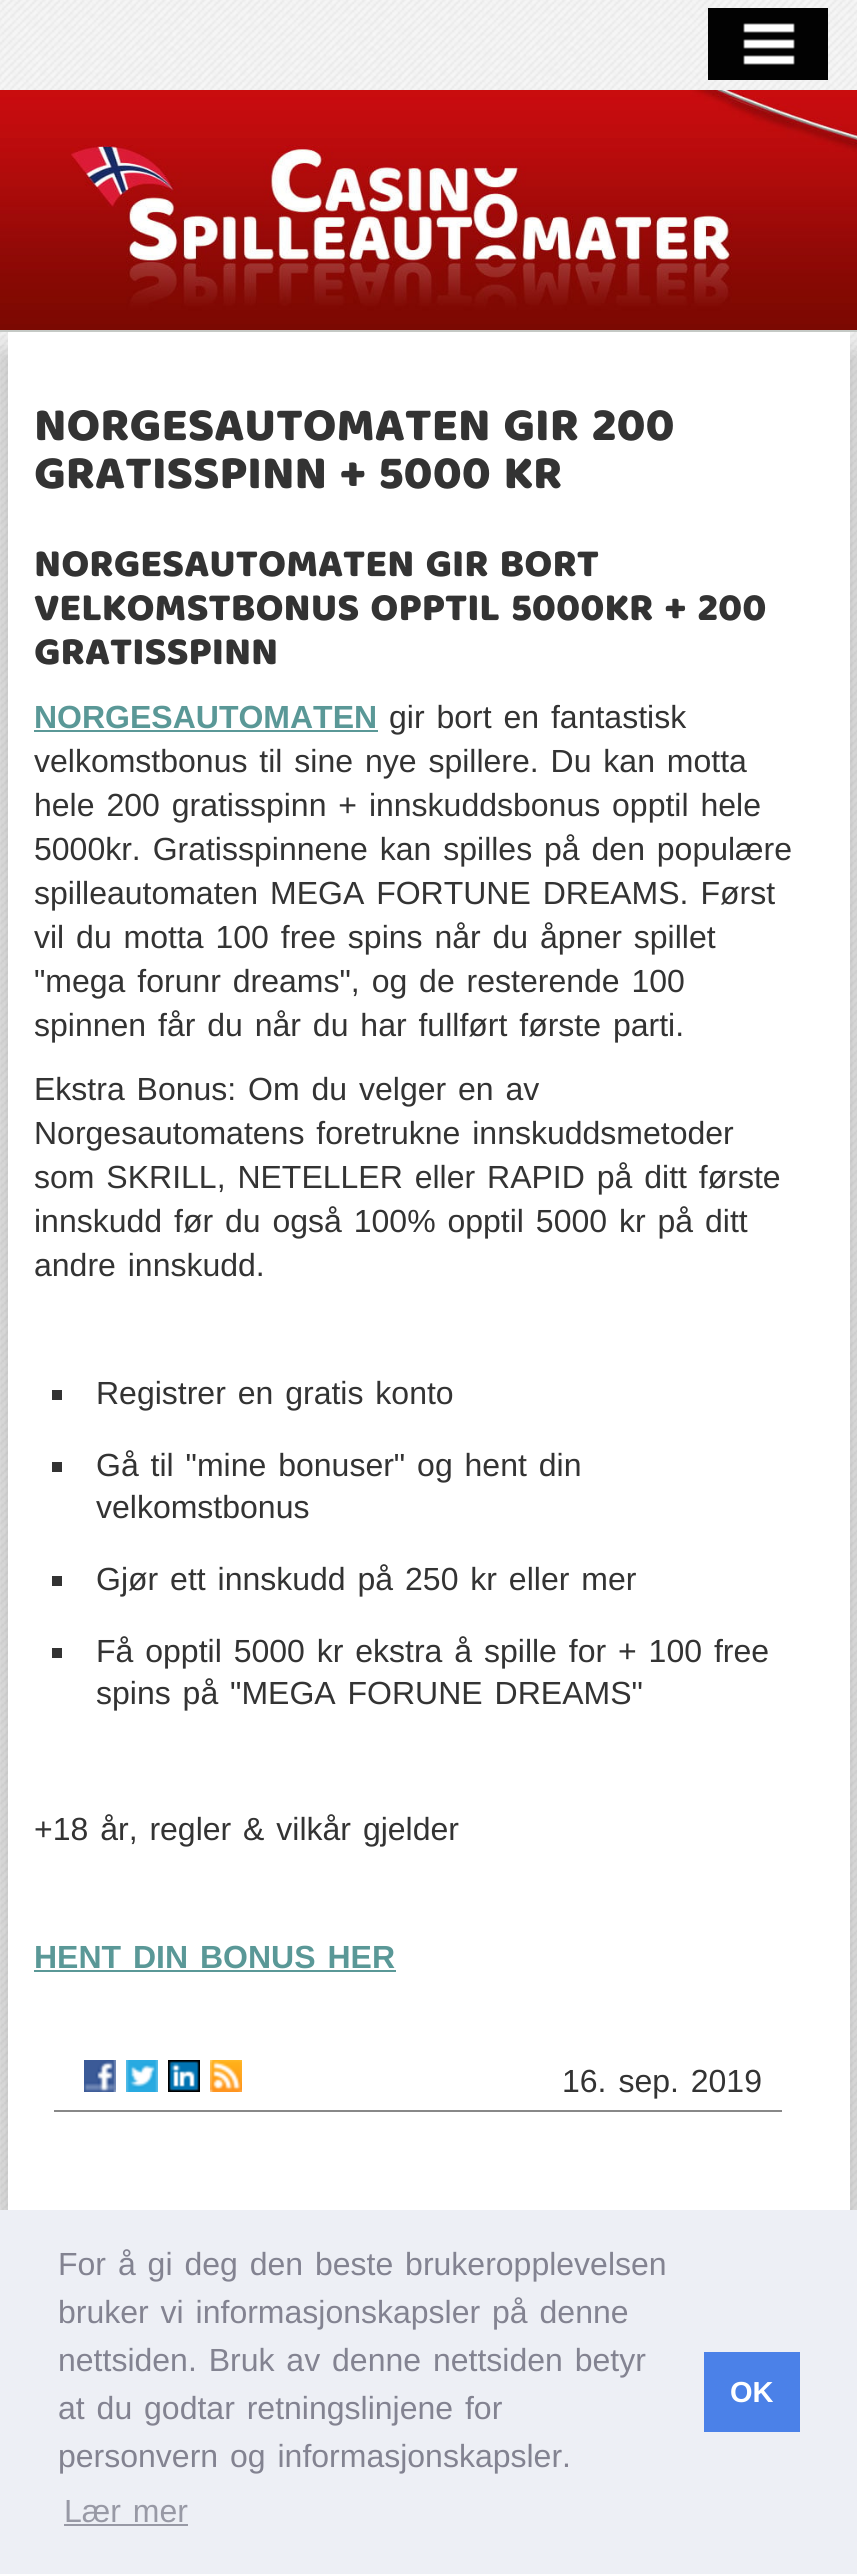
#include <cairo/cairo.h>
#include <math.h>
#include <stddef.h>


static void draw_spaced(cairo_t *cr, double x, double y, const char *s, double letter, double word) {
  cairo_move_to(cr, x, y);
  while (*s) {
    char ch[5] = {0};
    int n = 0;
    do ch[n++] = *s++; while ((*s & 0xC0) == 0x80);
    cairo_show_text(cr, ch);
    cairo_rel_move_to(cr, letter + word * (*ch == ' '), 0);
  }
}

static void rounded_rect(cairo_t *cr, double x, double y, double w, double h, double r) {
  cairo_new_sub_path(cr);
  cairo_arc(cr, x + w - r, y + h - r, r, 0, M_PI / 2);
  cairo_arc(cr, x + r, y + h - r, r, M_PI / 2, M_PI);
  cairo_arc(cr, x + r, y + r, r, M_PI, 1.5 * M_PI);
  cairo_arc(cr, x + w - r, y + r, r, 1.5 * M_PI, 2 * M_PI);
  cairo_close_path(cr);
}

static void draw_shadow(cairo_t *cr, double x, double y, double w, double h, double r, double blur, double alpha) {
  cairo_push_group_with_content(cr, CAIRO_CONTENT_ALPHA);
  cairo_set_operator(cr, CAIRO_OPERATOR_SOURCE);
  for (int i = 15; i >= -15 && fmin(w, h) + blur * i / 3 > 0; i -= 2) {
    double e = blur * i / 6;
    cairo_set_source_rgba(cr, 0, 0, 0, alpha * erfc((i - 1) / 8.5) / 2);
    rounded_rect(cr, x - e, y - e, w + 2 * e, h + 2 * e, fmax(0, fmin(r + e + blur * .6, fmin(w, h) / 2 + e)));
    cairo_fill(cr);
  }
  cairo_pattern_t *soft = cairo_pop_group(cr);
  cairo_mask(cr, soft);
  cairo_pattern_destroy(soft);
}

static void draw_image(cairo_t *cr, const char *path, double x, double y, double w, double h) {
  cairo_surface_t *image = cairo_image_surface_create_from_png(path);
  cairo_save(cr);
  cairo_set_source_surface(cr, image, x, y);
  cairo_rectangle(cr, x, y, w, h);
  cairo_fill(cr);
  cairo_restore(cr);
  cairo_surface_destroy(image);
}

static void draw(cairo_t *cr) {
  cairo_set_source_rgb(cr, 1, 1, 1);
  cairo_paint(cr);
  draw_image(cr, "images/1.png", 0, 0, 857, 2210);
  cairo_set_source_rgb(cr, 1, 1, 1);
  cairo_rectangle(cr, 743, 23, 52, 42);
  cairo_fill(cr);
  draw_image(cr, "images/2.png", 708, 8, 120, 72);
  cairo_set_source_rgb(cr, 200 / 255.0, 204 / 255.0, 200 / 255.0);
  cairo_rectangle(cr, 0, 330, 857, 2);
  cairo_fill(cr);
  draw_image(cr, "images/3.png", 0, 90, 857, 240);
  cairo_set_source_rgb(cr, 0, 0, 0);
  draw_shadow(cr, -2, 352, 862, 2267, 0, 15, 0.2);
  cairo_set_source_rgb(cr, 1, 1, 1);
  cairo_rectangle(cr, 8, 332, 842, 1878);
  cairo_fill(cr);
  cairo_set_source_rgb(cr, 90 / 255.0, 152 / 255.0, 151 / 255.0);
  cairo_rectangle(cr, 34, 730, 344, 2);
  cairo_fill(cr);
  cairo_set_source_rgb(cr, 51 / 255.0, 51 / 255.0, 51 / 255.0);
  cairo_rectangle(cr, 52, 1390, 10, 10);
  cairo_fill(cr);
  cairo_rectangle(cr, 52, 1462, 10, 10);
  cairo_fill(cr);
  cairo_rectangle(cr, 52, 1576, 10, 10);
  cairo_fill(cr);
  cairo_rectangle(cr, 52, 1648, 10, 10);
  cairo_fill(cr);
  cairo_set_source_rgb(cr, 90 / 255.0, 152 / 255.0, 151 / 255.0);
  cairo_rectangle(cr, 34, 1970, 362, 2);
  cairo_fill(cr);
  draw_image(cr, "images/4.png", 84, 2060, 32, 32);
  draw_image(cr, "images/5.png", 126, 2060, 32, 32);
  draw_image(cr, "images/6.png", 168, 2060, 32, 32);
  draw_image(cr, "images/7.png", 210, 2060, 32, 32);
  cairo_set_source_rgb(cr, 136 / 255.0, 136 / 255.0, 136 / 255.0);
  cairo_rectangle(cr, 54, 2110, 728, 2);
  cairo_fill(cr);
  cairo_set_source_rgb(cr, 237 / 255.0, 239 / 255.0, 245 / 255.0);
  cairo_rectangle(cr, 0, 2210, 857, 364);
  cairo_fill(cr);
  cairo_set_source_rgb(cr, 152 / 255.0, 153 / 255.0, 165 / 255.0);
  cairo_rectangle(cr, 64, 2524, 124, 2);
  cairo_fill(cr);
  cairo_set_source_rgb(cr, 75 / 255.0, 129 / 255.0, 232 / 255.0);
  cairo_rectangle(cr, 704, 2352, 96, 80);
  cairo_fill(cr);
  cairo_select_font_face(cr, "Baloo", CAIRO_FONT_SLANT_NORMAL, CAIRO_FONT_WEIGHT_NORMAL);
  cairo_set_font_size(cr, 48);
  cairo_set_source_rgb(cr, 51 / 255.0, 51 / 255.0, 51 / 255.0);
  draw_spaced(cr, 34, 440, "NORGESAUTOMATEN GIR 200", 0, 3);
  draw_spaced(cr, 34, 488, "GRATISSPINN + 5000 KR", 0, 3);
  cairo_set_font_size(cr, 40);
  draw_spaced(cr, 34, 576, "NORGESAUTOMATEN GIR BORT", 0, 3);
  draw_spaced(cr, 34, 620, "VELKOMSTBONUS OPPTIL 5000KR + 200", 0, 3);
  cairo_move_to(cr, 34, 664);
  cairo_show_text(cr, "GRATISSPINN");
  cairo_select_font_face(cr, "Liberation Sans", CAIRO_FONT_SLANT_NORMAL, CAIRO_FONT_WEIGHT_BOLD);
  cairo_set_font_size(cr, 32);
  cairo_set_source_rgb(cr, 90 / 255.0, 152 / 255.0, 151 / 255.0);
  cairo_move_to(cr, 34, 728);
  cairo_show_text(cr, "NORGESAUTOMATEN");
  cairo_select_font_face(cr, "Liberation Sans", CAIRO_FONT_SLANT_NORMAL, CAIRO_FONT_WEIGHT_NORMAL);
  cairo_set_source_rgb(cr, 51 / 255.0, 51 / 255.0, 51 / 255.0);
  draw_spaced(cr, 389, 728, "gir bort en fantastisk", 0, 3);
  draw_spaced(cr, 34, 772, "velkomstbonus til sine nye spillere. Du kan motta", 0, 3);
  draw_spaced(cr, 34, 816, "hele 200 gratisspinn + innskuddsbonus opptil hele", 0, 3);
  draw_spaced(cr, 34, 860, "5000kr. Gratisspinnene kan spilles på den populære", 0, 3);
  draw_spaced(cr, 34, 904, "spilleautomaten MEGA FORTUNE DREAMS. Først", 0, 3);
  draw_spaced(cr, 34, 948, "vil du motta 100 free spins når du åpner spillet", 0, 3);
  draw_spaced(cr, 34, 992, "\"mega forunr dreams\", og de resterende 100", 0, 3);
  draw_spaced(cr, 34, 1036, "spinnen får du når du har fullført første parti.", 0, 3);
  draw_spaced(cr, 34, 1100, "Ekstra Bonus: Om du velger en av", 0, 3);
  draw_spaced(cr, 34, 1144, "Norgesautomatens foretrukne innskuddsmetoder", 0, 3);
  draw_spaced(cr, 34, 1188, "som SKRILL, NETELLER eller RAPID på ditt første", 0, 3);
  draw_spaced(cr, 34, 1232, "innskudd før du også 100% opptil 5000 kr på ditt", 0, 3);
  draw_spaced(cr, 34, 1276, "andre innskudd.", 0, 3);
  draw_spaced(cr, 96, 1404, "Registrer en gratis konto", 0, 3);
  draw_spaced(cr, 96, 1476, "Gå til \"mine bonuser\" og hent din", 0, 3);
  cairo_move_to(cr, 96, 1518);
  cairo_show_text(cr, "velkomstbonus");
  draw_spaced(cr, 96, 1590, "Gjør ett innskudd på 250 kr eller mer", 0, 3);
  draw_spaced(cr, 96, 1662, "Få opptil 5000 kr ekstra å spille for + 100 free", 0, 3);
  draw_spaced(cr, 96, 1704, "spins på \"MEGA FORUNE DREAMS\"", 0, 3);
  draw_spaced(cr, 34, 1840, "+18 år, regler & vilkår gjelder", 0, 3);
  cairo_select_font_face(cr, "Liberation Sans", CAIRO_FONT_SLANT_NORMAL, CAIRO_FONT_WEIGHT_BOLD);
  cairo_set_source_rgb(cr, 90 / 255.0, 152 / 255.0, 151 / 255.0);
  draw_spaced(cr, 34, 1968, "HENT DIN BONUS HER", 0, 3);
  cairo_select_font_face(cr, "Liberation Sans", CAIRO_FONT_SLANT_NORMAL, CAIRO_FONT_WEIGHT_NORMAL);
  cairo_set_source_rgb(cr, 51 / 255.0, 51 / 255.0, 51 / 255.0);
  draw_spaced(cr, 562, 2092, "16. sep. 2019", 0, 3);
  cairo_set_source_rgb(cr, 131 / 255.0, 131 / 255.0, 145 / 255.0);
  draw_spaced(cr, 58, 2275, "For å gi deg den beste brukeropplevelsen", 0, 3);
  draw_spaced(cr, 58, 2323, "bruker vi informasjonskapsler på denne", 0, 3);
  draw_spaced(cr, 58, 2371, "nettsiden. Bruk av denne nettsiden betyr", 0, 3);
  draw_spaced(cr, 58, 2419, "at du godtar retningslinjene for", 0, 3);
  draw_spaced(cr, 58, 2467, "personvern og informasjonskapsler.", 0, 3);
  cairo_set_source_rgb(cr, 152 / 255.0, 153 / 255.0, 165 / 255.0);
  draw_spaced(cr, 64, 2522, "Lær mer", 0, 3);
  cairo_select_font_face(cr, "Liberation Sans", CAIRO_FONT_SLANT_NORMAL, CAIRO_FONT_WEIGHT_BOLD);
  cairo_set_font_size(cr, 29);
  cairo_set_source_rgb(cr, 1, 1, 1);
  cairo_move_to(cr, 730, 2402);
  cairo_show_text(cr, "OK");
}

int main(void) {
  cairo_surface_t *surface = cairo_image_surface_create(CAIRO_FORMAT_RGB24, 857, 2574);
  cairo_t *cr = cairo_create(surface);
  cairo_font_options_t *options = cairo_font_options_create();
  cairo_font_options_set_hint_metrics(options, CAIRO_HINT_METRICS_OFF);
  cairo_font_options_set_hint_style(options, CAIRO_HINT_STYLE_NONE);
  cairo_set_font_options(cr, options);
  cairo_set_miter_limit(cr, 4);
  draw(cr);
  cairo_surface_write_to_png(surface, "out.png");
  cairo_font_options_destroy(options);
  cairo_destroy(cr);
  cairo_surface_destroy(surface);
  return 0;
}
